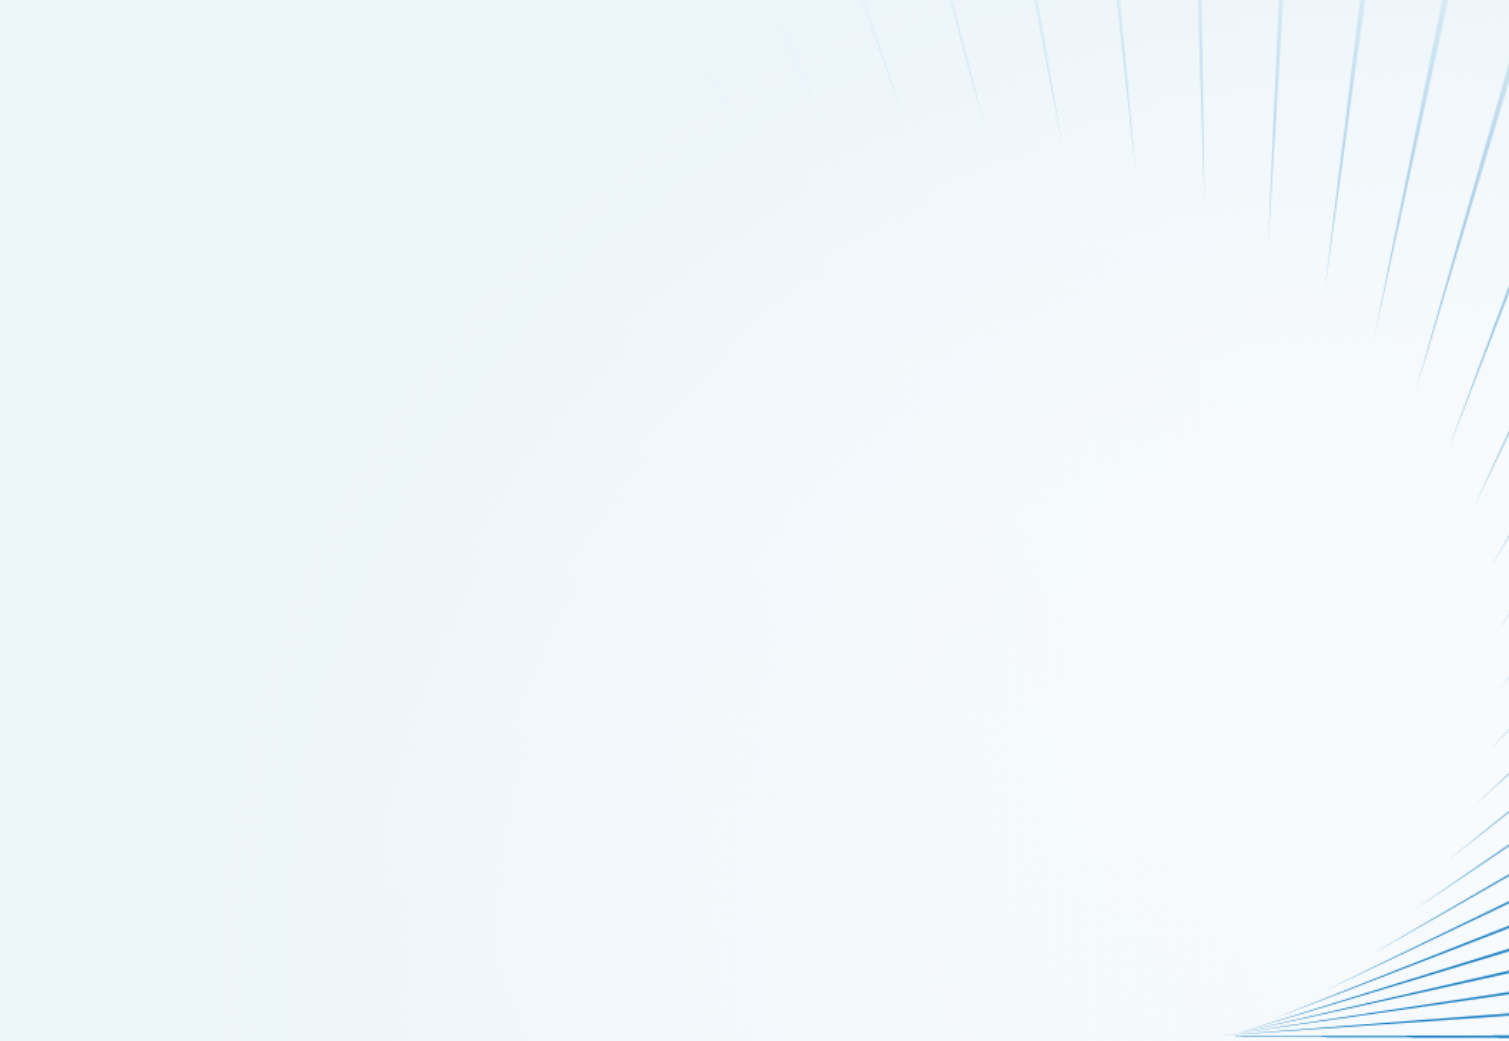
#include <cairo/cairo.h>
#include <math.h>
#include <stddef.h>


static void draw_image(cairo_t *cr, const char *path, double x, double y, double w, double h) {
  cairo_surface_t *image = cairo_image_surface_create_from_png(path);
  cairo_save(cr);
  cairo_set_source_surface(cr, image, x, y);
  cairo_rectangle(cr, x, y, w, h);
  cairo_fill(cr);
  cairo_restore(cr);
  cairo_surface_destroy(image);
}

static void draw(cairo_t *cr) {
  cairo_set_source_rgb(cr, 1, 1, 1);
  cairo_paint(cr);
  draw_image(cr, "images/1.png", 0, 0, 1509, 1041);
}

int main(void) {
  cairo_surface_t *surface = cairo_image_surface_create(CAIRO_FORMAT_RGB24, 1509, 1041);
  cairo_t *cr = cairo_create(surface);
  cairo_font_options_t *options = cairo_font_options_create();
  cairo_font_options_set_hint_metrics(options, CAIRO_HINT_METRICS_OFF);
  cairo_font_options_set_hint_style(options, CAIRO_HINT_STYLE_NONE);
  cairo_set_font_options(cr, options);
  cairo_set_miter_limit(cr, 4);
  draw(cr);
  cairo_surface_write_to_png(surface, "out.png");
  cairo_font_options_destroy(options);
  cairo_destroy(cr);
  cairo_surface_destroy(surface);
  return 0;
}
